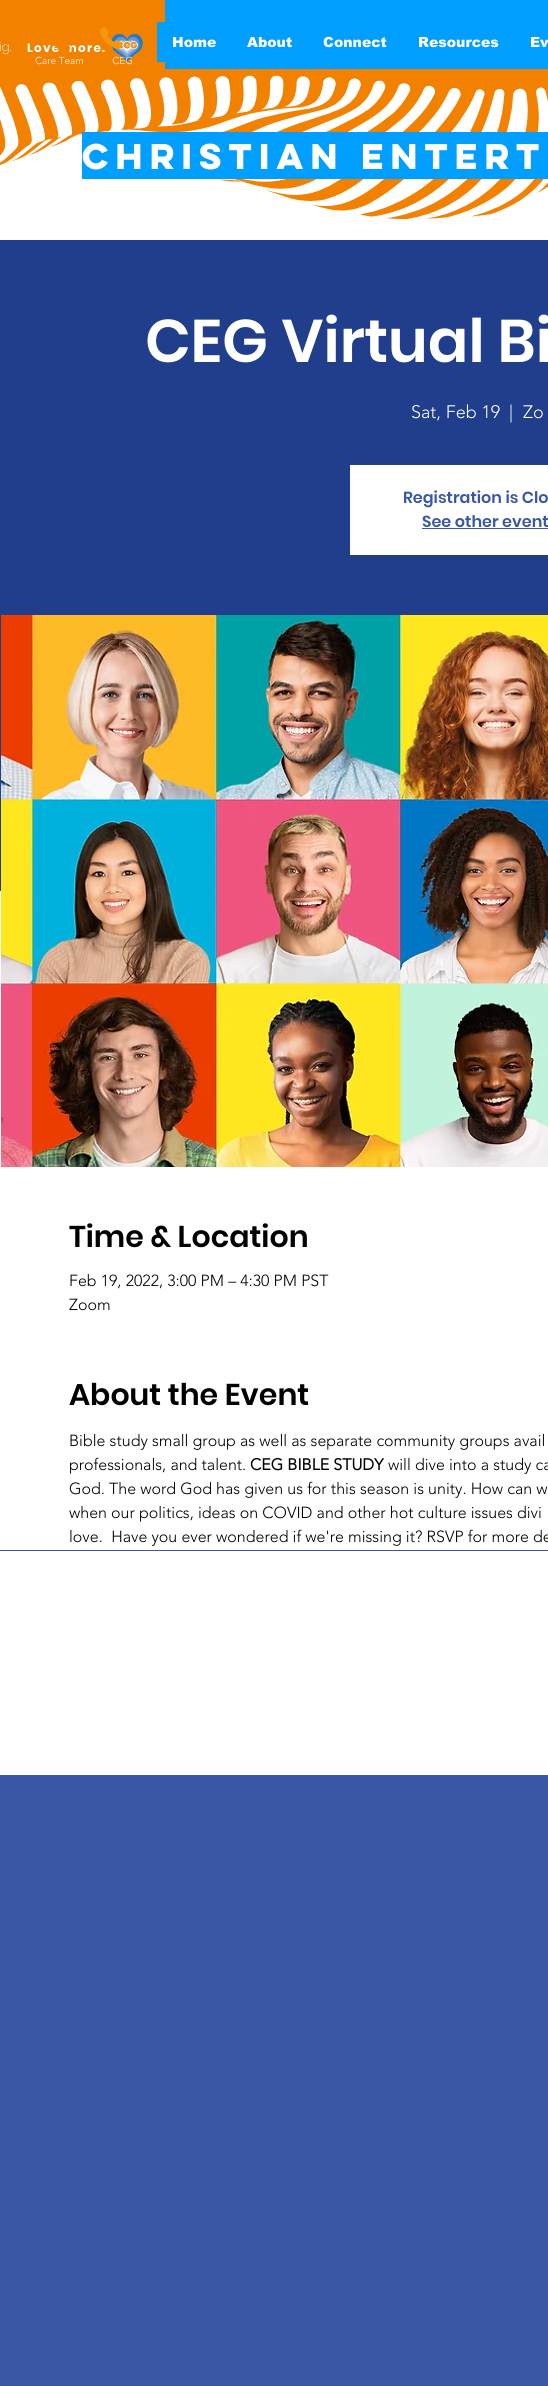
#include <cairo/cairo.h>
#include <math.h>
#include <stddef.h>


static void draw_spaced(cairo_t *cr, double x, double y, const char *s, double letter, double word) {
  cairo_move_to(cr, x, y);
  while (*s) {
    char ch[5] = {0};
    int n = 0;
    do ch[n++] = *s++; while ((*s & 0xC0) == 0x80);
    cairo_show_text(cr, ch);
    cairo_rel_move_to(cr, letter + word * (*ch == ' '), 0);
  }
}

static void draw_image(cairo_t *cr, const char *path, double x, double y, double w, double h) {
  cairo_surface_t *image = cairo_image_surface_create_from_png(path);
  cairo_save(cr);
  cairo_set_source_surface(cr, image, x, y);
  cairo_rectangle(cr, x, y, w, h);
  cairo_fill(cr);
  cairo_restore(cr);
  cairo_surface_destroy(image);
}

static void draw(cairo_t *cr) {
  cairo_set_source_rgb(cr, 58 / 255.0, 87 / 255.0, 166 / 255.0);
  cairo_paint(cr);
  cairo_set_source_rgb(cr, 0, 158 / 255.0, 1);
  cairo_rectangle(cr, 165, 0, 383, 69);
  cairo_fill(cr);
  cairo_set_source_rgb(cr, 242 / 255.0, 129 / 255.0, 0);
  cairo_rectangle(cr, 0, 0, 165, 69);
  cairo_fill(cr);
  cairo_set_source_rgb(cr, 0, 158 / 255.0, 1);
  cairo_rectangle(cr, 157, 22, 8, 40);
  cairo_fill(cr);
  draw_image(cr, "images/3.png", 111, 34, 32, 28);
  cairo_set_source_rgb(cr, 1, 1, 1);
  cairo_rectangle(cr, 0, 75, 548, 165);
  cairo_fill(cr);
  draw_image(cr, "images/4.png", 0, 69, 548, 150);
  cairo_set_source_rgb(cr, 0, 158 / 255.0, 1);
  cairo_rectangle(cr, 82, 132, 466, 47);
  cairo_fill(cr);
  cairo_set_source_rgb(cr, 33 / 255.0, 62 / 255.0, 140 / 255.0);
  cairo_rectangle(cr, 0, 240, 548, 651);
  cairo_fill(cr);
  cairo_set_source_rgb(cr, 1, 1, 1);
  cairo_rectangle(cr, 350, 465, 198, 90);
  cairo_fill(cr);
  cairo_set_source_rgb(cr, 58 / 255.0, 87 / 255.0, 166 / 255.0);
  cairo_rectangle(cr, 422, 528, 126, 1);
  cairo_fill(cr);
  cairo_set_source_rgb(cr, 1, 1, 1);
  cairo_rectangle(cr, 0, 891, 548, 659);
  cairo_fill(cr);
  draw_image(cr, "images/5.png", 1, 615, 547, 552);
  cairo_rectangle(cr, 0, 1551, 548, 224);
  cairo_fill(cr);
  cairo_select_font_face(cr, "arial Black", CAIRO_FONT_SLANT_NORMAL, CAIRO_FONT_WEIGHT_NORMAL);
  cairo_set_font_size(cr, 14);
  cairo_move_to(cr, 172, 47);
  cairo_show_text(cr, "Home");
  cairo_move_to(cr, 247, 47);
  cairo_show_text(cr, "About");
  cairo_move_to(cr, 323, 47);
  cairo_show_text(cr, "Connect");
  cairo_move_to(cr, 418, 47);
  cairo_show_text(cr, "Resources");
  cairo_move_to(cr, 530, 47);
  cairo_show_text(cr, "Ev");
  cairo_select_font_face(cr, "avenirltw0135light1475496 Light", CAIRO_FONT_SLANT_NORMAL, CAIRO_FONT_WEIGHT_NORMAL);
  cairo_set_font_size(cr, 10);
  cairo_move_to(cr, 35, 64);
  cairo_show_text(cr, "Care Team           CEG");
  cairo_select_font_face(cr, "Poppins ExtraLight", CAIRO_FONT_SLANT_NORMAL, CAIRO_FONT_WEIGHT_NORMAL);
  cairo_set_font_size(cr, 12);
  cairo_move_to(cr, -1, 51);
  cairo_show_text(cr, "ig.");
  cairo_select_font_face(cr, "Poppins", CAIRO_FONT_SLANT_NORMAL, CAIRO_FONT_WEIGHT_BOLD);
  draw_spaced(cr, 27, 52, "Love more.", 1.25, 0);
  draw_image(cr, "images/1.png", 53, 45, 18, 7);
  draw_image(cr, "images/2.png", 100, 27, 23, 23);
  cairo_select_font_face(cr, "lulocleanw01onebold", CAIRO_FONT_SLANT_NORMAL, CAIRO_FONT_WEIGHT_BOLD);
  cairo_set_font_size(cr, 32);
  cairo_move_to(cr, 82, 169);
  cairo_show_text(cr, "Christian Entert");
  cairo_select_font_face(cr, "Poppins SemiBold", CAIRO_FONT_SLANT_NORMAL, CAIRO_FONT_WEIGHT_NORMAL);
  cairo_set_font_size(cr, 60);
  cairo_move_to(cr, 145, 362);
  cairo_show_text(cr, "CEG Virtual Bi");
  cairo_select_font_face(cr, "avenirltw0135light1475496 Light", CAIRO_FONT_SLANT_NORMAL, CAIRO_FONT_WEIGHT_NORMAL);
  cairo_set_font_size(cr, 18);
  cairo_move_to(cr, 411, 418);
  cairo_show_text(cr, "Sat, Feb 19");
  cairo_move_to(cr, 509, 418);
  cairo_show_text(cr, "|");
  cairo_move_to(cr, 523, 418);
  cairo_show_text(cr, "Zo");
  cairo_select_font_face(cr, "Poppins SemiBold", CAIRO_FONT_SLANT_NORMAL, CAIRO_FONT_WEIGHT_NORMAL);
  cairo_set_font_size(cr, 16);
  cairo_set_source_rgb(cr, 58 / 255.0, 87 / 255.0, 166 / 255.0);
  cairo_move_to(cr, 403, 503);
  cairo_show_text(cr, "Registration is Clo");
  cairo_move_to(cr, 422, 527);
  cairo_show_text(cr, "See other event");
  cairo_set_font_size(cr, 30);
  cairo_set_source_rgb(cr, 0, 0, 0);
  cairo_move_to(cr, 69, 1247);
  cairo_show_text(cr, "Time & Location");
  cairo_select_font_face(cr, "avenirltw0135light1475496 Light", CAIRO_FONT_SLANT_NORMAL, CAIRO_FONT_WEIGHT_NORMAL);
  cairo_set_font_size(cr, 16);
  cairo_move_to(cr, 69, 1286);
  cairo_show_text(cr, "Feb 19, 2022, 3:00 PM – 4:30 PM PST");
  cairo_move_to(cr, 69, 1310);
  cairo_show_text(cr, "Zoom");
  cairo_select_font_face(cr, "Poppins SemiBold", CAIRO_FONT_SLANT_NORMAL, CAIRO_FONT_WEIGHT_NORMAL);
  cairo_set_font_size(cr, 30);
  cairo_move_to(cr, 69, 1405);
  cairo_show_text(cr, "About the Event");
  cairo_select_font_face(cr, "avenirltw0135light1475496 Light", CAIRO_FONT_SLANT_NORMAL, CAIRO_FONT_WEIGHT_NORMAL);
  cairo_set_font_size(cr, 16);
  cairo_move_to(cr, 69, 1446);
  cairo_show_text(cr, "Bible study small group as well as separate community groups avail");
  cairo_move_to(cr, 69, 1470);
  cairo_show_text(cr, "professionals, and talent.");
  cairo_select_font_face(cr, "avenirltw0135light1475496", CAIRO_FONT_SLANT_NORMAL, CAIRO_FONT_WEIGHT_BOLD);
  cairo_move_to(cr, 250, 1470);
  cairo_show_text(cr, "CEG BIBLE STUDY");
  cairo_select_font_face(cr, "avenirltw0135light1475496 Light", CAIRO_FONT_SLANT_NORMAL, CAIRO_FONT_WEIGHT_NORMAL);
  cairo_move_to(cr, 388, 1470);
  cairo_show_text(cr, "will dive into a study ca");
  cairo_move_to(cr, 69, 1494);
  cairo_show_text(cr, "God. The word God has given us for this season is unity. How can w");
  cairo_move_to(cr, 69, 1518);
  cairo_show_text(cr, "when our politics, ideas on COVID and other hot culture issues divi");
  cairo_move_to(cr, 69, 1542);
  cairo_show_text(cr, "love.  Have you ever wondered if we're missing it? RSVP for more de");
}

int main(void) {
  cairo_surface_t *surface = cairo_image_surface_create(CAIRO_FORMAT_RGB24, 548, 2386);
  cairo_t *cr = cairo_create(surface);
  cairo_font_options_t *options = cairo_font_options_create();
  cairo_font_options_set_hint_metrics(options, CAIRO_HINT_METRICS_OFF);
  cairo_font_options_set_hint_style(options, CAIRO_HINT_STYLE_NONE);
  cairo_set_font_options(cr, options);
  cairo_set_miter_limit(cr, 4);
  draw(cr);
  cairo_surface_write_to_png(surface, "out.png");
  cairo_font_options_destroy(options);
  cairo_destroy(cr);
  cairo_surface_destroy(surface);
  return 0;
}
